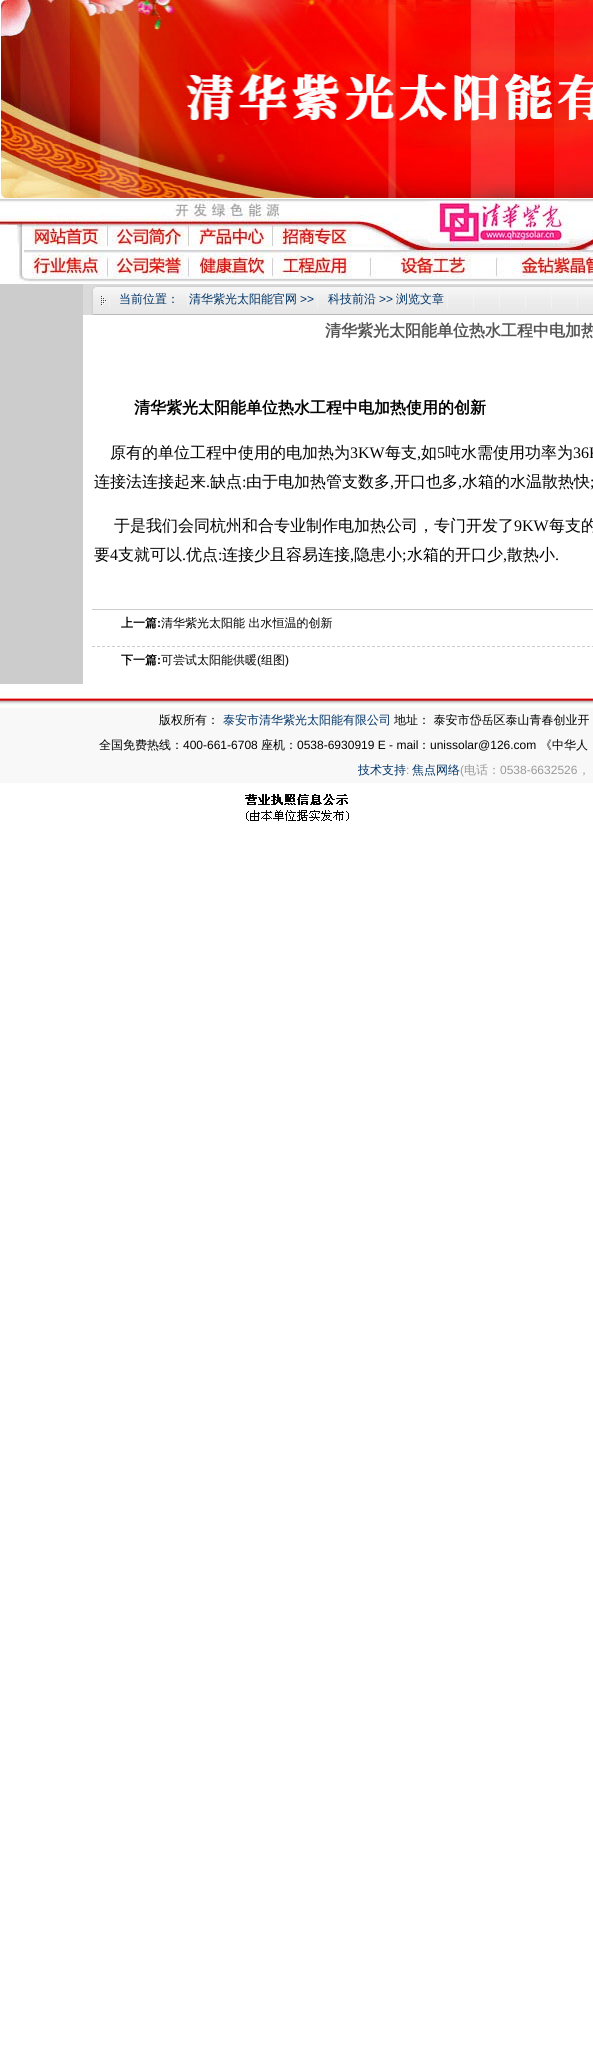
#include <cairo/cairo.h>
#include <math.h>
#include <stddef.h>


static void draw_image(cairo_t *cr, const char *path, double x, double y, double w, double h) {
  cairo_surface_t *image = cairo_image_surface_create_from_png(path);
  cairo_save(cr);
  cairo_set_source_surface(cr, image, x, y);
  cairo_rectangle(cr, x, y, w, h);
  cairo_fill(cr);
  cairo_restore(cr);
  cairo_surface_destroy(image);
}

static void draw(cairo_t *cr) {
  cairo_set_source_rgb(cr, 1, 1, 1);
  cairo_paint(cr);
  draw_image(cr, "images/1.png", 1, 0, 592, 198);
  draw_image(cr, "images/2.png", 0, 198, 593, 86);
  cairo_set_source_rgb(cr, 204 / 255.0, 204 / 255.0, 204 / 255.0);
  cairo_rectangle(cr, 0, 284, 83, 400);
  cairo_fill(cr);
  draw_image(cr, "images/3.png", 83, 284, 26, 31);
  draw_image(cr, "images/4.png", 109, 284, 484, 31);
  cairo_rectangle(cr, 92, 609, 501, 1);
  cairo_fill(cr);
  cairo_new_path(cr);
  cairo_move_to(cr, 92, 646.5);
  cairo_line_to(cr, 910, 646.5);
  cairo_set_line_width(cr, 1);
  cairo_set_dash(cr, (double[]){3, 2}, 2, 0);
  cairo_stroke(cr);
  draw_image(cr, "images/5.png", 0, 692, 593, 16);
  cairo_set_source_rgb(cr, 248 / 255.0, 248 / 255.0, 248 / 255.0);
  cairo_rectangle(cr, 0, 708, 593, 75);
  cairo_fill(cr);
  draw_image(cr, "images/6.png", 245, 794, 104, 27);
  cairo_select_font_face(cr, "WenQuanYi Zen Hei Medium", CAIRO_FONT_SLANT_NORMAL, CAIRO_FONT_WEIGHT_NORMAL);
  cairo_set_font_size(cr, 12);
  cairo_set_source_rgb(cr, 0, 51 / 255.0, 102 / 255.0);
  cairo_move_to(cr, 119, 303);
  cairo_show_text(cr, "当前位置：");
  cairo_move_to(cr, 189, 303);
  cairo_show_text(cr, "清华紫光太阳能官网");
  cairo_select_font_face(cr, "Liberation Sans", CAIRO_FONT_SLANT_NORMAL, CAIRO_FONT_WEIGHT_NORMAL);
  cairo_move_to(cr, 300, 303);
  cairo_show_text(cr, ">>");
  cairo_select_font_face(cr, "WenQuanYi Zen Hei Medium", CAIRO_FONT_SLANT_NORMAL, CAIRO_FONT_WEIGHT_NORMAL);
  cairo_move_to(cr, 328, 303);
  cairo_show_text(cr, "科技前沿");
  cairo_select_font_face(cr, "Liberation Sans", CAIRO_FONT_SLANT_NORMAL, CAIRO_FONT_WEIGHT_NORMAL);
  cairo_move_to(cr, 379, 303);
  cairo_show_text(cr, ">>");
  cairo_select_font_face(cr, "WenQuanYi Zen Hei Medium", CAIRO_FONT_SLANT_NORMAL, CAIRO_FONT_WEIGHT_NORMAL);
  cairo_move_to(cr, 396, 303);
  cairo_show_text(cr, "浏览文章");
  cairo_select_font_face(cr, "WenQuanYi Zen Hei", CAIRO_FONT_SLANT_NORMAL, CAIRO_FONT_WEIGHT_BOLD);
  cairo_set_font_size(cr, 16);
  cairo_set_source_rgb(cr, 85 / 255.0, 85 / 255.0, 85 / 255.0);
  cairo_move_to(cr, 325, 336);
  cairo_show_text(cr, "清华紫光太阳能单位热水工程中电加热");
  cairo_set_source_rgb(cr, 0, 0, 0);
  cairo_move_to(cr, 134, 413);
  cairo_show_text(cr, "清华紫光太阳能单位热水工程中电加热使用的创新");
  cairo_select_font_face(cr, "WenQuanYi Zen Hei Medium", CAIRO_FONT_SLANT_NORMAL, CAIRO_FONT_WEIGHT_NORMAL);
  cairo_move_to(cr, 110, 458);
  cairo_show_text(cr, "原有的单位工程中使用的电加热为");
  cairo_select_font_face(cr, "Liberation Serif", CAIRO_FONT_SLANT_NORMAL, CAIRO_FONT_WEIGHT_NORMAL);
  cairo_move_to(cr, 350, 458);
  cairo_show_text(cr, "3KW");
  cairo_select_font_face(cr, "WenQuanYi Zen Hei Medium", CAIRO_FONT_SLANT_NORMAL, CAIRO_FONT_WEIGHT_NORMAL);
  cairo_move_to(cr, 385, 458);
  cairo_show_text(cr, "每支");
  cairo_select_font_face(cr, "Liberation Serif", CAIRO_FONT_SLANT_NORMAL, CAIRO_FONT_WEIGHT_NORMAL);
  cairo_move_to(cr, 417, 458);
  cairo_show_text(cr, ",");
  cairo_select_font_face(cr, "WenQuanYi Zen Hei Medium", CAIRO_FONT_SLANT_NORMAL, CAIRO_FONT_WEIGHT_NORMAL);
  cairo_move_to(cr, 421, 458);
  cairo_show_text(cr, "如");
  cairo_select_font_face(cr, "Liberation Serif", CAIRO_FONT_SLANT_NORMAL, CAIRO_FONT_WEIGHT_NORMAL);
  cairo_move_to(cr, 437, 458);
  cairo_show_text(cr, "5");
  cairo_select_font_face(cr, "WenQuanYi Zen Hei Medium", CAIRO_FONT_SLANT_NORMAL, CAIRO_FONT_WEIGHT_NORMAL);
  cairo_move_to(cr, 445, 458);
  cairo_show_text(cr, "吨水需使用功率为");
  cairo_select_font_face(cr, "Liberation Serif", CAIRO_FONT_SLANT_NORMAL, CAIRO_FONT_WEIGHT_NORMAL);
  cairo_move_to(cr, 573, 458);
  cairo_show_text(cr, "36K");
  cairo_select_font_face(cr, "WenQuanYi Zen Hei Medium", CAIRO_FONT_SLANT_NORMAL, CAIRO_FONT_WEIGHT_NORMAL);
  cairo_move_to(cr, 94, 487);
  cairo_show_text(cr, "连接法连接起来");
  cairo_select_font_face(cr, "Liberation Serif", CAIRO_FONT_SLANT_NORMAL, CAIRO_FONT_WEIGHT_NORMAL);
  cairo_move_to(cr, 206, 487);
  cairo_show_text(cr, ".");
  cairo_select_font_face(cr, "WenQuanYi Zen Hei Medium", CAIRO_FONT_SLANT_NORMAL, CAIRO_FONT_WEIGHT_NORMAL);
  cairo_move_to(cr, 210, 487);
  cairo_show_text(cr, "缺点");
  cairo_select_font_face(cr, "Liberation Serif", CAIRO_FONT_SLANT_NORMAL, CAIRO_FONT_WEIGHT_NORMAL);
  cairo_move_to(cr, 242, 487);
  cairo_show_text(cr, ":");
  cairo_select_font_face(cr, "WenQuanYi Zen Hei Medium", CAIRO_FONT_SLANT_NORMAL, CAIRO_FONT_WEIGHT_NORMAL);
  cairo_move_to(cr, 246, 487);
  cairo_show_text(cr, "由于电加热管支数多");
  cairo_select_font_face(cr, "Liberation Serif", CAIRO_FONT_SLANT_NORMAL, CAIRO_FONT_WEIGHT_NORMAL);
  cairo_move_to(cr, 390, 487);
  cairo_show_text(cr, ",");
  cairo_select_font_face(cr, "WenQuanYi Zen Hei Medium", CAIRO_FONT_SLANT_NORMAL, CAIRO_FONT_WEIGHT_NORMAL);
  cairo_move_to(cr, 394, 487);
  cairo_show_text(cr, "开口也多");
  cairo_select_font_face(cr, "Liberation Serif", CAIRO_FONT_SLANT_NORMAL, CAIRO_FONT_WEIGHT_NORMAL);
  cairo_move_to(cr, 458, 487);
  cairo_show_text(cr, ",");
  cairo_select_font_face(cr, "WenQuanYi Zen Hei Medium", CAIRO_FONT_SLANT_NORMAL, CAIRO_FONT_WEIGHT_NORMAL);
  cairo_move_to(cr, 462, 487);
  cairo_show_text(cr, "水箱的水温散热快");
  cairo_select_font_face(cr, "Liberation Serif", CAIRO_FONT_SLANT_NORMAL, CAIRO_FONT_WEIGHT_NORMAL);
  cairo_move_to(cr, 590, 487);
  cairo_show_text(cr, ";");
  cairo_select_font_face(cr, "WenQuanYi Zen Hei Medium", CAIRO_FONT_SLANT_NORMAL, CAIRO_FONT_WEIGHT_NORMAL);
  cairo_move_to(cr, 114, 531);
  cairo_show_text(cr, "于是我们会同杭州和合专业制作电加热公司，专门开发了");
  cairo_select_font_face(cr, "Liberation Serif", CAIRO_FONT_SLANT_NORMAL, CAIRO_FONT_WEIGHT_NORMAL);
  cairo_move_to(cr, 514, 531);
  cairo_show_text(cr, "9KW");
  cairo_select_font_face(cr, "WenQuanYi Zen Hei Medium", CAIRO_FONT_SLANT_NORMAL, CAIRO_FONT_WEIGHT_NORMAL);
  cairo_move_to(cr, 549, 531);
  cairo_show_text(cr, "每支的");
  cairo_move_to(cr, 94, 560);
  cairo_show_text(cr, "要");
  cairo_select_font_face(cr, "Liberation Serif", CAIRO_FONT_SLANT_NORMAL, CAIRO_FONT_WEIGHT_NORMAL);
  cairo_move_to(cr, 110, 560);
  cairo_show_text(cr, "4");
  cairo_select_font_face(cr, "WenQuanYi Zen Hei Medium", CAIRO_FONT_SLANT_NORMAL, CAIRO_FONT_WEIGHT_NORMAL);
  cairo_move_to(cr, 118, 560);
  cairo_show_text(cr, "支就可以");
  cairo_select_font_face(cr, "Liberation Serif", CAIRO_FONT_SLANT_NORMAL, CAIRO_FONT_WEIGHT_NORMAL);
  cairo_move_to(cr, 182, 560);
  cairo_show_text(cr, ".");
  cairo_select_font_face(cr, "WenQuanYi Zen Hei Medium", CAIRO_FONT_SLANT_NORMAL, CAIRO_FONT_WEIGHT_NORMAL);
  cairo_move_to(cr, 186, 560);
  cairo_show_text(cr, "优点");
  cairo_select_font_face(cr, "Liberation Serif", CAIRO_FONT_SLANT_NORMAL, CAIRO_FONT_WEIGHT_NORMAL);
  cairo_move_to(cr, 218, 560);
  cairo_show_text(cr, ":");
  cairo_select_font_face(cr, "WenQuanYi Zen Hei Medium", CAIRO_FONT_SLANT_NORMAL, CAIRO_FONT_WEIGHT_NORMAL);
  cairo_move_to(cr, 222, 560);
  cairo_show_text(cr, "连接少且容易连接");
  cairo_select_font_face(cr, "Liberation Serif", CAIRO_FONT_SLANT_NORMAL, CAIRO_FONT_WEIGHT_NORMAL);
  cairo_move_to(cr, 350, 560);
  cairo_show_text(cr, ",");
  cairo_select_font_face(cr, "WenQuanYi Zen Hei Medium", CAIRO_FONT_SLANT_NORMAL, CAIRO_FONT_WEIGHT_NORMAL);
  cairo_move_to(cr, 354, 560);
  cairo_show_text(cr, "隐患小");
  cairo_select_font_face(cr, "Liberation Serif", CAIRO_FONT_SLANT_NORMAL, CAIRO_FONT_WEIGHT_NORMAL);
  cairo_move_to(cr, 402, 560);
  cairo_show_text(cr, ";");
  cairo_select_font_face(cr, "WenQuanYi Zen Hei Medium", CAIRO_FONT_SLANT_NORMAL, CAIRO_FONT_WEIGHT_NORMAL);
  cairo_move_to(cr, 407, 560);
  cairo_show_text(cr, "水箱的开口少");
  cairo_select_font_face(cr, "Liberation Serif", CAIRO_FONT_SLANT_NORMAL, CAIRO_FONT_WEIGHT_NORMAL);
  cairo_move_to(cr, 503, 560);
  cairo_show_text(cr, ",");
  cairo_select_font_face(cr, "WenQuanYi Zen Hei Medium", CAIRO_FONT_SLANT_NORMAL, CAIRO_FONT_WEIGHT_NORMAL);
  cairo_move_to(cr, 507, 560);
  cairo_show_text(cr, "散热小");
  cairo_select_font_face(cr, "Liberation Serif", CAIRO_FONT_SLANT_NORMAL, CAIRO_FONT_WEIGHT_NORMAL);
  cairo_move_to(cr, 555, 560);
  cairo_show_text(cr, ".");
  cairo_select_font_face(cr, "WenQuanYi Zen Hei", CAIRO_FONT_SLANT_NORMAL, CAIRO_FONT_WEIGHT_BOLD);
  cairo_set_font_size(cr, 12);
  cairo_move_to(cr, 121, 627);
  cairo_show_text(cr, "上一篇");
  cairo_select_font_face(cr, "Liberation Sans", CAIRO_FONT_SLANT_NORMAL, CAIRO_FONT_WEIGHT_BOLD);
  cairo_move_to(cr, 157, 627);
  cairo_show_text(cr, ":");
  cairo_select_font_face(cr, "WenQuanYi Zen Hei Medium", CAIRO_FONT_SLANT_NORMAL, CAIRO_FONT_WEIGHT_NORMAL);
  cairo_move_to(cr, 161, 627);
  cairo_show_text(cr, "清华紫光太阳能 出水恒温的创新");
  cairo_select_font_face(cr, "WenQuanYi Zen Hei", CAIRO_FONT_SLANT_NORMAL, CAIRO_FONT_WEIGHT_BOLD);
  cairo_move_to(cr, 121, 664);
  cairo_show_text(cr, "下一篇");
  cairo_select_font_face(cr, "Liberation Sans", CAIRO_FONT_SLANT_NORMAL, CAIRO_FONT_WEIGHT_BOLD);
  cairo_move_to(cr, 157, 664);
  cairo_show_text(cr, ":");
  cairo_select_font_face(cr, "WenQuanYi Zen Hei Medium", CAIRO_FONT_SLANT_NORMAL, CAIRO_FONT_WEIGHT_NORMAL);
  cairo_move_to(cr, 161, 664);
  cairo_show_text(cr, "可尝试太阳能供暖");
  cairo_select_font_face(cr, "Liberation Sans", CAIRO_FONT_SLANT_NORMAL, CAIRO_FONT_WEIGHT_NORMAL);
  cairo_move_to(cr, 257, 664);
  cairo_show_text(cr, "(");
  cairo_select_font_face(cr, "WenQuanYi Zen Hei Medium", CAIRO_FONT_SLANT_NORMAL, CAIRO_FONT_WEIGHT_NORMAL);
  cairo_move_to(cr, 261, 664);
  cairo_show_text(cr, "组图");
  cairo_select_font_face(cr, "Liberation Sans", CAIRO_FONT_SLANT_NORMAL, CAIRO_FONT_WEIGHT_NORMAL);
  cairo_move_to(cr, 285, 664);
  cairo_show_text(cr, ")");
  cairo_select_font_face(cr, "WenQuanYi Zen Hei Medium", CAIRO_FONT_SLANT_NORMAL, CAIRO_FONT_WEIGHT_NORMAL);
  cairo_move_to(cr, 159, 724);
  cairo_show_text(cr, "版权所有：");
  cairo_set_source_rgb(cr, 0, 51 / 255.0, 102 / 255.0);
  cairo_move_to(cr, 223, 724);
  cairo_show_text(cr, "泰安市清华紫光太阳能有限公司");
  cairo_set_source_rgb(cr, 0, 0, 0);
  cairo_move_to(cr, 394, 724);
  cairo_show_text(cr, "地址： 泰安市岱岳区泰山青春创业开");
  cairo_move_to(cr, 99, 749);
  cairo_show_text(cr, "全国免费热线：");
  cairo_select_font_face(cr, "Liberation Sans", CAIRO_FONT_SLANT_NORMAL, CAIRO_FONT_WEIGHT_NORMAL);
  cairo_move_to(cr, 183, 749);
  cairo_show_text(cr, "400-661-6708");
  cairo_select_font_face(cr, "WenQuanYi Zen Hei Medium", CAIRO_FONT_SLANT_NORMAL, CAIRO_FONT_WEIGHT_NORMAL);
  cairo_move_to(cr, 261, 749);
  cairo_show_text(cr, "座机：");
  cairo_select_font_face(cr, "Liberation Sans", CAIRO_FONT_SLANT_NORMAL, CAIRO_FONT_WEIGHT_NORMAL);
  cairo_move_to(cr, 297, 749);
  cairo_show_text(cr, "0538-6930919 E - mail");
  cairo_select_font_face(cr, "WenQuanYi Zen Hei Medium", CAIRO_FONT_SLANT_NORMAL, CAIRO_FONT_WEIGHT_NORMAL);
  cairo_move_to(cr, 418, 749);
  cairo_show_text(cr, "：");
  cairo_select_font_face(cr, "Liberation Sans", CAIRO_FONT_SLANT_NORMAL, CAIRO_FONT_WEIGHT_NORMAL);
  cairo_move_to(cr, 430, 749);
  cairo_show_text(cr, "unissolar@126.com");
  cairo_select_font_face(cr, "WenQuanYi Zen Hei Medium", CAIRO_FONT_SLANT_NORMAL, CAIRO_FONT_WEIGHT_NORMAL);
  cairo_move_to(cr, 540, 749);
  cairo_show_text(cr, "《中华人");
  cairo_set_source_rgb(cr, 0, 51 / 255.0, 102 / 255.0);
  cairo_move_to(cr, 358, 774);
  cairo_show_text(cr, "技术支持");
  cairo_select_font_face(cr, "Liberation Sans", CAIRO_FONT_SLANT_NORMAL, CAIRO_FONT_WEIGHT_NORMAL);
  cairo_set_source_rgb(cr, 153 / 255.0, 153 / 255.0, 153 / 255.0);
  cairo_move_to(cr, 406, 774);
  cairo_show_text(cr, ":");
  cairo_select_font_face(cr, "WenQuanYi Zen Hei Medium", CAIRO_FONT_SLANT_NORMAL, CAIRO_FONT_WEIGHT_NORMAL);
  cairo_set_source_rgb(cr, 0, 51 / 255.0, 102 / 255.0);
  cairo_move_to(cr, 412, 774);
  cairo_show_text(cr, "焦点网络");
  cairo_select_font_face(cr, "Liberation Sans", CAIRO_FONT_SLANT_NORMAL, CAIRO_FONT_WEIGHT_NORMAL);
  cairo_set_source_rgb(cr, 153 / 255.0, 153 / 255.0, 153 / 255.0);
  cairo_move_to(cr, 460, 774);
  cairo_show_text(cr, "(");
  cairo_select_font_face(cr, "WenQuanYi Zen Hei Medium", CAIRO_FONT_SLANT_NORMAL, CAIRO_FONT_WEIGHT_NORMAL);
  cairo_move_to(cr, 464, 774);
  cairo_show_text(cr, "电话：");
  cairo_select_font_face(cr, "Liberation Sans", CAIRO_FONT_SLANT_NORMAL, CAIRO_FONT_WEIGHT_NORMAL);
  cairo_move_to(cr, 500, 774);
  cairo_show_text(cr, "0538-6632526");
  cairo_select_font_face(cr, "WenQuanYi Zen Hei Medium", CAIRO_FONT_SLANT_NORMAL, CAIRO_FONT_WEIGHT_NORMAL);
  cairo_move_to(cr, 578, 774);
  cairo_show_text(cr, "，");
}

int main(void) {
  cairo_surface_t *surface = cairo_image_surface_create(CAIRO_FORMAT_RGB24, 593, 2055);
  cairo_t *cr = cairo_create(surface);
  cairo_font_options_t *options = cairo_font_options_create();
  cairo_font_options_set_hint_metrics(options, CAIRO_HINT_METRICS_OFF);
  cairo_font_options_set_hint_style(options, CAIRO_HINT_STYLE_NONE);
  cairo_set_font_options(cr, options);
  cairo_set_miter_limit(cr, 4);
  draw(cr);
  cairo_surface_write_to_png(surface, "out.png");
  cairo_font_options_destroy(options);
  cairo_destroy(cr);
  cairo_surface_destroy(surface);
  return 0;
}
